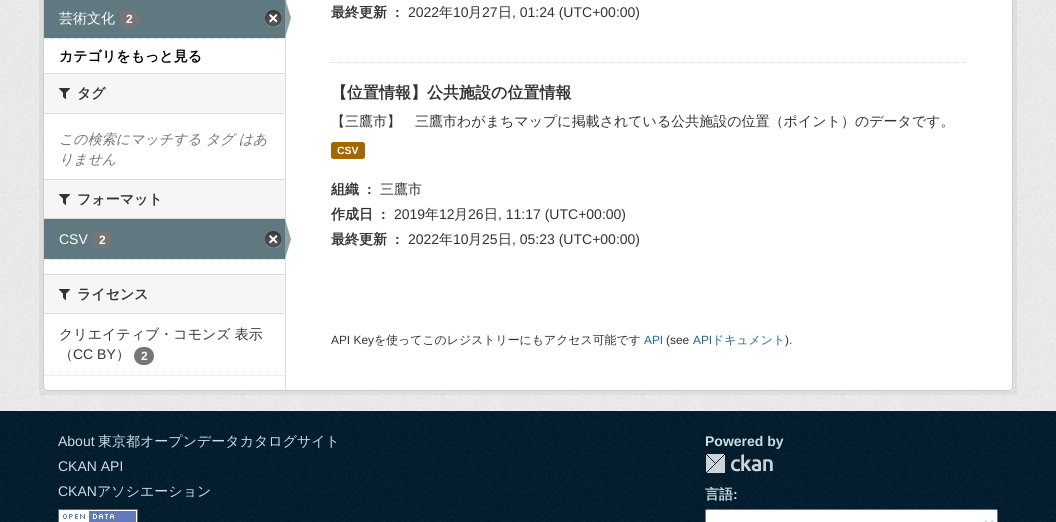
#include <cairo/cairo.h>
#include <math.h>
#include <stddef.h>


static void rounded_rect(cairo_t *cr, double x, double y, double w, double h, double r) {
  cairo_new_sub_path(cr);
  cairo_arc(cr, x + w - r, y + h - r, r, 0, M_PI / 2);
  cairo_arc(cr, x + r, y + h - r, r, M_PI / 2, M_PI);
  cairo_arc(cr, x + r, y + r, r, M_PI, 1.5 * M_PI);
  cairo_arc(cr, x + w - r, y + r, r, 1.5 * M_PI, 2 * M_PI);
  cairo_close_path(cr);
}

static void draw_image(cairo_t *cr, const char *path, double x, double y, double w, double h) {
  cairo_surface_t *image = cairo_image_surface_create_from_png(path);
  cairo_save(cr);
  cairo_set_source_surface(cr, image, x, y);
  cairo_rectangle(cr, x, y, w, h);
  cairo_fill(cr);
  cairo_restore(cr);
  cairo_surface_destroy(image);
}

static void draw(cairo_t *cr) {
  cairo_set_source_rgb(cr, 2 / 255.0, 29 / 255.0, 46 / 255.0);
  cairo_paint(cr);
  cairo_set_source_rgb(cr, 238 / 255.0, 238 / 255.0, 238 / 255.0);
  cairo_rectangle(cr, 0, 0, 1056, 411);
  cairo_fill(cr);
  draw_image(cr, "images/1.png", 0, 0, 1056, 411);
  cairo_rectangle(cr, 41, -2, 974, 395);
  cairo_set_source_rgba(cr, 0, 0, 0, 0.05);
  cairo_set_line_width(cr, 4);
  cairo_stroke(cr);
  cairo_set_source_rgb(cr, 1, 1, 1);
  rounded_rect(cr, 43.5, -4.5, 969, 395, 3.5);
  cairo_fill_preserve(cr);
  cairo_set_source_rgb(cr, 204 / 255.0, 204 / 255.0, 204 / 255.0);
  cairo_set_line_width(cr, 1);
  cairo_stroke(cr);
  cairo_set_source_rgb(cr, 96 / 255.0, 120 / 255.0, 128 / 255.0);
  cairo_rectangle(cr, 44, 0, 241, 38);
  cairo_fill(cr);
  cairo_set_source_rgb(cr, 118 / 255.0, 118 / 255.0, 118 / 255.0);
  rounded_rect(cr, 119, 10, 21, 18, 9);
  cairo_fill(cr);
  draw_image(cr, "images/2.png", 265, 10, 17, 17);
  cairo_set_source_rgb(cr, 221 / 255.0, 221 / 255.0, 221 / 255.0);
  cairo_rectangle(cr, 285, 0, 1, 390);
  cairo_fill(cr);
  cairo_set_source_rgb(cr, 140 / 255.0, 160 / 255.0, 166 / 255.0);
  cairo_new_path(cr);
  cairo_move_to(cr, 285, 38);
  cairo_line_to(cr, 285, -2);
  cairo_line_to(cr, 291, 18);
  cairo_close_path(cr);
  cairo_fill(cr);
  cairo_new_path(cr);
  cairo_move_to(cr, 44, 38.5);
  cairo_line_to(cr, 285, 38.5);
  cairo_set_source_rgb(cr, 221 / 255.0, 221 / 255.0, 221 / 255.0);
  cairo_set_dash(cr, (double[]){1, 1}, 2, 0);
  cairo_stroke(cr);
  cairo_set_source_rgb(cr, 246 / 255.0, 246 / 255.0, 246 / 255.0);
  cairo_rectangle(cr, 44, 74, 241, 39);
  cairo_fill(cr);
  cairo_set_source_rgb(cr, 221 / 255.0, 221 / 255.0, 221 / 255.0);
  cairo_rectangle(cr, 44, 73, 241, 1);
  cairo_fill(cr);
  cairo_rectangle(cr, 44, 113, 241, 1);
  cairo_fill(cr);
  draw_image(cr, "images/3.png", 59, 88, 11, 11);
  cairo_set_source_rgb(cr, 246 / 255.0, 246 / 255.0, 246 / 255.0);
  cairo_rectangle(cr, 44, 180, 241, 38);
  cairo_fill(cr);
  cairo_set_source_rgb(cr, 221 / 255.0, 221 / 255.0, 221 / 255.0);
  cairo_rectangle(cr, 44, 179, 241, 1);
  cairo_fill(cr);
  cairo_rectangle(cr, 44, 218, 241, 1);
  cairo_fill(cr);
  draw_image(cr, "images/3.png", 59, 194, 11, 11);
  cairo_set_source_rgb(cr, 96 / 255.0, 120 / 255.0, 128 / 255.0);
  cairo_rectangle(cr, 44, 219, 241, 40);
  cairo_fill(cr);
  cairo_set_source_rgb(cr, 118 / 255.0, 118 / 255.0, 118 / 255.0);
  rounded_rect(cr, 92, 231, 20, 18, 9);
  cairo_fill(cr);
  draw_image(cr, "images/2.png", 265, 231, 17, 17);
  cairo_set_source_rgb(cr, 140 / 255.0, 160 / 255.0, 166 / 255.0);
  cairo_new_path(cr);
  cairo_move_to(cr, 285, 259);
  cairo_line_to(cr, 285, 219);
  cairo_line_to(cr, 291, 239);
  cairo_close_path(cr);
  cairo_fill(cr);
  cairo_new_path(cr);
  cairo_move_to(cr, 44, 259.5);
  cairo_line_to(cr, 285, 259.5);
  cairo_set_source_rgb(cr, 221 / 255.0, 221 / 255.0, 221 / 255.0);
  cairo_stroke(cr);
  cairo_set_source_rgb(cr, 246 / 255.0, 246 / 255.0, 246 / 255.0);
  cairo_rectangle(cr, 44, 275, 241, 38);
  cairo_fill(cr);
  cairo_set_source_rgb(cr, 221 / 255.0, 221 / 255.0, 221 / 255.0);
  cairo_rectangle(cr, 44, 274, 241, 1);
  cairo_fill(cr);
  cairo_rectangle(cr, 44, 313, 241, 1);
  cairo_fill(cr);
  draw_image(cr, "images/3.png", 59, 289, 11, 11);
  cairo_set_source_rgb(cr, 118 / 255.0, 118 / 255.0, 118 / 255.0);
  rounded_rect(cr, 134, 347, 20, 18, 9);
  cairo_fill(cr);
  cairo_new_path(cr);
  cairo_move_to(cr, 44, 375.5);
  cairo_line_to(cr, 285, 375.5);
  cairo_set_source_rgb(cr, 221 / 255.0, 221 / 255.0, 221 / 255.0);
  cairo_stroke(cr);
  cairo_new_path(cr);
  cairo_move_to(cr, 331, 62.5);
  cairo_line_to(cr, 967, 62.5);
  cairo_stroke(cr);
  cairo_set_source_rgb(cr, 163 / 255.0, 103 / 255.0, 0);
  rounded_rect(cr, 331, 142, 34, 17, 2.5);
  cairo_fill(cr);
  draw_image(cr, "images/4.png", 0, 411, 1056, 111);
  draw_image(cr, "images/5.png", 58, 509, 80, 13);
  draw_image(cr, "images/6.png", 706, 454, 67, 19);
  cairo_set_source_rgb(cr, 1, 1, 1);
  rounded_rect(cr, 705.5, 509.5, 292, 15, 1.5);
  cairo_fill_preserve(cr);
  cairo_set_source_rgb(cr, 118 / 255.0, 118 / 255.0, 118 / 255.0);
  cairo_set_dash(cr, NULL, 0, 0);
  cairo_stroke(cr);
  cairo_new_path(cr);
  cairo_move_to(cr, 985, 520.5);
  cairo_line_to(cr, 989, 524.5);
  cairo_line_to(cr, 993, 520.5);
  cairo_set_source_rgb(cr, 204 / 255.0, 222 / 255.0, 227 / 255.0);
  cairo_set_line_width(cr, 2);
  cairo_stroke(cr);
  cairo_select_font_face(cr, "WenQuanYi Zen Hei Medium", CAIRO_FONT_SLANT_NORMAL, CAIRO_FONT_WEIGHT_NORMAL);
  cairo_set_font_size(cr, 14);
  cairo_set_source_rgb(cr, 1, 1, 1);
  cairo_move_to(cr, 59, 23);
  cairo_show_text(cr, "芸術文化");
  cairo_select_font_face(cr, "Liberation Sans", CAIRO_FONT_SLANT_NORMAL, CAIRO_FONT_WEIGHT_BOLD);
  cairo_set_font_size(cr, 12);
  cairo_move_to(cr, 126, 23);
  cairo_show_text(cr, "2");
  cairo_select_font_face(cr, "WenQuanYi Zen Hei", CAIRO_FONT_SLANT_NORMAL, CAIRO_FONT_WEIGHT_BOLD);
  cairo_set_font_size(cr, 14);
  cairo_set_source_rgb(cr, 0, 0, 0);
  cairo_move_to(cr, 59, 61);
  cairo_show_text(cr, "カテゴリをもっと見る");
  cairo_set_source_rgb(cr, 51 / 255.0, 51 / 255.0, 51 / 255.0);
  cairo_move_to(cr, 77, 98);
  cairo_show_text(cr, "タグ");
  cairo_select_font_face(cr, "WenQuanYi Zen Hei Medium", CAIRO_FONT_SLANT_ITALIC, CAIRO_FONT_WEIGHT_NORMAL);
  cairo_set_source_rgb(cr, 118 / 255.0, 118 / 255.0, 118 / 255.0);
  cairo_move_to(cr, 59, 144);
  cairo_show_text(cr, "この検索にマッチする タグ はあ");
  cairo_move_to(cr, 59, 164);
  cairo_show_text(cr, "りません");
  cairo_select_font_face(cr, "WenQuanYi Zen Hei", CAIRO_FONT_SLANT_NORMAL, CAIRO_FONT_WEIGHT_BOLD);
  cairo_set_source_rgb(cr, 51 / 255.0, 51 / 255.0, 51 / 255.0);
  cairo_move_to(cr, 77, 204);
  cairo_show_text(cr, "フォーマット");
  cairo_select_font_face(cr, "Liberation Sans", CAIRO_FONT_SLANT_NORMAL, CAIRO_FONT_WEIGHT_NORMAL);
  cairo_set_source_rgb(cr, 1, 1, 1);
  cairo_move_to(cr, 59, 244);
  cairo_show_text(cr, "CSV");
  cairo_select_font_face(cr, "Liberation Sans", CAIRO_FONT_SLANT_NORMAL, CAIRO_FONT_WEIGHT_BOLD);
  cairo_set_font_size(cr, 12);
  cairo_move_to(cr, 99, 244);
  cairo_show_text(cr, "2");
  cairo_select_font_face(cr, "WenQuanYi Zen Hei", CAIRO_FONT_SLANT_NORMAL, CAIRO_FONT_WEIGHT_BOLD);
  cairo_set_font_size(cr, 14);
  cairo_set_source_rgb(cr, 51 / 255.0, 51 / 255.0, 51 / 255.0);
  cairo_move_to(cr, 77, 299);
  cairo_show_text(cr, "ライセンス");
  cairo_select_font_face(cr, "WenQuanYi Zen Hei Medium", CAIRO_FONT_SLANT_NORMAL, CAIRO_FONT_WEIGHT_NORMAL);
  cairo_move_to(cr, 59, 339);
  cairo_show_text(cr, "クリエイティブ・コモンズ 表示");
  cairo_move_to(cr, 59, 359);
  cairo_show_text(cr, "（");
  cairo_select_font_face(cr, "Liberation Sans", CAIRO_FONT_SLANT_NORMAL, CAIRO_FONT_WEIGHT_NORMAL);
  cairo_move_to(cr, 73, 359);
  cairo_show_text(cr, "CC BY");
  cairo_select_font_face(cr, "WenQuanYi Zen Hei Medium", CAIRO_FONT_SLANT_NORMAL, CAIRO_FONT_WEIGHT_NORMAL);
  cairo_move_to(cr, 116, 359);
  cairo_show_text(cr, "）");
  cairo_select_font_face(cr, "Liberation Sans", CAIRO_FONT_SLANT_NORMAL, CAIRO_FONT_WEIGHT_BOLD);
  cairo_set_font_size(cr, 12);
  cairo_set_source_rgb(cr, 1, 1, 1);
  cairo_move_to(cr, 141, 360);
  cairo_show_text(cr, "2");
  cairo_select_font_face(cr, "WenQuanYi Zen Hei", CAIRO_FONT_SLANT_NORMAL, CAIRO_FONT_WEIGHT_BOLD);
  cairo_set_font_size(cr, 14);
  cairo_set_source_rgb(cr, 51 / 255.0, 51 / 255.0, 51 / 255.0);
  cairo_move_to(cr, 331, 17);
  cairo_show_text(cr, "最終更新");
  cairo_select_font_face(cr, "Liberation Sans", CAIRO_FONT_SLANT_NORMAL, CAIRO_FONT_WEIGHT_BOLD);
  cairo_move_to(cr, 395, 17);
  cairo_show_text(cr, ":");
  cairo_select_font_face(cr, "Liberation Sans", CAIRO_FONT_SLANT_NORMAL, CAIRO_FONT_WEIGHT_NORMAL);
  cairo_move_to(cr, 408, 17);
  cairo_show_text(cr, "2022");
  cairo_select_font_face(cr, "WenQuanYi Zen Hei Medium", CAIRO_FONT_SLANT_NORMAL, CAIRO_FONT_WEIGHT_NORMAL);
  cairo_move_to(cr, 439, 17);
  cairo_show_text(cr, "年");
  cairo_select_font_face(cr, "Liberation Sans", CAIRO_FONT_SLANT_NORMAL, CAIRO_FONT_WEIGHT_NORMAL);
  cairo_move_to(cr, 453, 17);
  cairo_show_text(cr, "10");
  cairo_select_font_face(cr, "WenQuanYi Zen Hei Medium", CAIRO_FONT_SLANT_NORMAL, CAIRO_FONT_WEIGHT_NORMAL);
  cairo_move_to(cr, 468, 17);
  cairo_show_text(cr, "月");
  cairo_select_font_face(cr, "Liberation Sans", CAIRO_FONT_SLANT_NORMAL, CAIRO_FONT_WEIGHT_NORMAL);
  cairo_move_to(cr, 482, 17);
  cairo_show_text(cr, "27");
  cairo_select_font_face(cr, "WenQuanYi Zen Hei Medium", CAIRO_FONT_SLANT_NORMAL, CAIRO_FONT_WEIGHT_NORMAL);
  cairo_move_to(cr, 498, 17);
  cairo_show_text(cr, "日");
  cairo_select_font_face(cr, "Liberation Sans", CAIRO_FONT_SLANT_NORMAL, CAIRO_FONT_WEIGHT_NORMAL);
  cairo_move_to(cr, 512, 17);
  cairo_show_text(cr, ", 01:24 (UTC+00:00)");
  cairo_select_font_face(cr, "WenQuanYi Zen Hei", CAIRO_FONT_SLANT_NORMAL, CAIRO_FONT_WEIGHT_BOLD);
  cairo_set_font_size(cr, 16);
  cairo_move_to(cr, 331, 98);
  cairo_show_text(cr, "【位置情報】公共施設の位置情報");
  cairo_select_font_face(cr, "WenQuanYi Zen Hei Medium", CAIRO_FONT_SLANT_NORMAL, CAIRO_FONT_WEIGHT_NORMAL);
  cairo_set_font_size(cr, 14);
  cairo_move_to(cr, 331, 126);
  cairo_show_text(cr, "【三鷹市】　三鷹市わがまちマップに掲載されている公共施設の位置（ポイント）のデータです。");
  cairo_select_font_face(cr, "Liberation Sans", CAIRO_FONT_SLANT_NORMAL, CAIRO_FONT_WEIGHT_BOLD);
  cairo_set_font_size(cr, 10.5);
  cairo_set_source_rgb(cr, 1, 1, 1);
  cairo_move_to(cr, 337, 154);
  cairo_show_text(cr, "CSV");
  cairo_select_font_face(cr, "WenQuanYi Zen Hei", CAIRO_FONT_SLANT_NORMAL, CAIRO_FONT_WEIGHT_BOLD);
  cairo_set_font_size(cr, 14);
  cairo_set_source_rgb(cr, 51 / 255.0, 51 / 255.0, 51 / 255.0);
  cairo_move_to(cr, 331, 194);
  cairo_show_text(cr, "組織");
  cairo_select_font_face(cr, "Liberation Sans", CAIRO_FONT_SLANT_NORMAL, CAIRO_FONT_WEIGHT_BOLD);
  cairo_move_to(cr, 367, 194);
  cairo_show_text(cr, ":");
  cairo_select_font_face(cr, "WenQuanYi Zen Hei Medium", CAIRO_FONT_SLANT_NORMAL, CAIRO_FONT_WEIGHT_NORMAL);
  cairo_move_to(cr, 380, 194);
  cairo_show_text(cr, "三鷹市");
  cairo_select_font_face(cr, "WenQuanYi Zen Hei", CAIRO_FONT_SLANT_NORMAL, CAIRO_FONT_WEIGHT_BOLD);
  cairo_move_to(cr, 331, 219);
  cairo_show_text(cr, "作成日");
  cairo_select_font_face(cr, "Liberation Sans", CAIRO_FONT_SLANT_NORMAL, CAIRO_FONT_WEIGHT_BOLD);
  cairo_move_to(cr, 381, 219);
  cairo_show_text(cr, ":");
  cairo_select_font_face(cr, "Liberation Sans", CAIRO_FONT_SLANT_NORMAL, CAIRO_FONT_WEIGHT_NORMAL);
  cairo_move_to(cr, 394, 219);
  cairo_show_text(cr, "2019");
  cairo_select_font_face(cr, "WenQuanYi Zen Hei Medium", CAIRO_FONT_SLANT_NORMAL, CAIRO_FONT_WEIGHT_NORMAL);
  cairo_move_to(cr, 425, 219);
  cairo_show_text(cr, "年");
  cairo_select_font_face(cr, "Liberation Sans", CAIRO_FONT_SLANT_NORMAL, CAIRO_FONT_WEIGHT_NORMAL);
  cairo_move_to(cr, 439, 219);
  cairo_show_text(cr, "12");
  cairo_select_font_face(cr, "WenQuanYi Zen Hei Medium", CAIRO_FONT_SLANT_NORMAL, CAIRO_FONT_WEIGHT_NORMAL);
  cairo_move_to(cr, 454, 219);
  cairo_show_text(cr, "月");
  cairo_select_font_face(cr, "Liberation Sans", CAIRO_FONT_SLANT_NORMAL, CAIRO_FONT_WEIGHT_NORMAL);
  cairo_move_to(cr, 468, 219);
  cairo_show_text(cr, "26");
  cairo_select_font_face(cr, "WenQuanYi Zen Hei Medium", CAIRO_FONT_SLANT_NORMAL, CAIRO_FONT_WEIGHT_NORMAL);
  cairo_move_to(cr, 484, 219);
  cairo_show_text(cr, "日");
  cairo_select_font_face(cr, "Liberation Sans", CAIRO_FONT_SLANT_NORMAL, CAIRO_FONT_WEIGHT_NORMAL);
  cairo_move_to(cr, 498, 219);
  cairo_show_text(cr, ", 11:17 (UTC+00:00)");
  cairo_select_font_face(cr, "WenQuanYi Zen Hei", CAIRO_FONT_SLANT_NORMAL, CAIRO_FONT_WEIGHT_BOLD);
  cairo_move_to(cr, 331, 244);
  cairo_show_text(cr, "最終更新");
  cairo_select_font_face(cr, "Liberation Sans", CAIRO_FONT_SLANT_NORMAL, CAIRO_FONT_WEIGHT_BOLD);
  cairo_move_to(cr, 395, 244);
  cairo_show_text(cr, ":");
  cairo_select_font_face(cr, "Liberation Sans", CAIRO_FONT_SLANT_NORMAL, CAIRO_FONT_WEIGHT_NORMAL);
  cairo_move_to(cr, 408, 244);
  cairo_show_text(cr, "2022");
  cairo_select_font_face(cr, "WenQuanYi Zen Hei Medium", CAIRO_FONT_SLANT_NORMAL, CAIRO_FONT_WEIGHT_NORMAL);
  cairo_move_to(cr, 439, 244);
  cairo_show_text(cr, "年");
  cairo_select_font_face(cr, "Liberation Sans", CAIRO_FONT_SLANT_NORMAL, CAIRO_FONT_WEIGHT_NORMAL);
  cairo_move_to(cr, 453, 244);
  cairo_show_text(cr, "10");
  cairo_select_font_face(cr, "WenQuanYi Zen Hei Medium", CAIRO_FONT_SLANT_NORMAL, CAIRO_FONT_WEIGHT_NORMAL);
  cairo_move_to(cr, 468, 244);
  cairo_show_text(cr, "月");
  cairo_select_font_face(cr, "Liberation Sans", CAIRO_FONT_SLANT_NORMAL, CAIRO_FONT_WEIGHT_NORMAL);
  cairo_move_to(cr, 482, 244);
  cairo_show_text(cr, "25");
  cairo_select_font_face(cr, "WenQuanYi Zen Hei Medium", CAIRO_FONT_SLANT_NORMAL, CAIRO_FONT_WEIGHT_NORMAL);
  cairo_move_to(cr, 498, 244);
  cairo_show_text(cr, "日");
  cairo_select_font_face(cr, "Liberation Sans", CAIRO_FONT_SLANT_NORMAL, CAIRO_FONT_WEIGHT_NORMAL);
  cairo_move_to(cr, 512, 244);
  cairo_show_text(cr, ", 05:23 (UTC+00:00)");
  cairo_set_font_size(cr, 11.9);
  cairo_move_to(cr, 331, 344);
  cairo_show_text(cr, "API Key");
  cairo_select_font_face(cr, "WenQuanYi Zen Hei Medium", CAIRO_FONT_SLANT_NORMAL, CAIRO_FONT_WEIGHT_NORMAL);
  cairo_move_to(cr, 374, 344);
  cairo_show_text(cr, "を使ってこのレジストリーにもアクセス可能です");
  cairo_select_font_face(cr, "Liberation Sans", CAIRO_FONT_SLANT_NORMAL, CAIRO_FONT_WEIGHT_NORMAL);
  cairo_set_source_rgb(cr, 32 / 255.0, 107 / 255.0, 130 / 255.0);
  cairo_move_to(cr, 644, 344);
  cairo_show_text(cr, "API");
  cairo_set_source_rgb(cr, 51 / 255.0, 51 / 255.0, 51 / 255.0);
  cairo_move_to(cr, 666, 344);
  cairo_show_text(cr, "(see");
  cairo_set_source_rgb(cr, 32 / 255.0, 107 / 255.0, 130 / 255.0);
  cairo_move_to(cr, 693, 344);
  cairo_show_text(cr, "API");
  cairo_select_font_face(cr, "WenQuanYi Zen Hei Medium", CAIRO_FONT_SLANT_NORMAL, CAIRO_FONT_WEIGHT_NORMAL);
  cairo_move_to(cr, 712, 344);
  cairo_show_text(cr, "ドキュメント");
  cairo_select_font_face(cr, "Liberation Sans", CAIRO_FONT_SLANT_NORMAL, CAIRO_FONT_WEIGHT_NORMAL);
  cairo_set_source_rgb(cr, 51 / 255.0, 51 / 255.0, 51 / 255.0);
  cairo_move_to(cr, 785, 344);
  cairo_show_text(cr, ").");
  cairo_set_font_size(cr, 14);
  cairo_set_source_rgb(cr, 204 / 255.0, 222 / 255.0, 227 / 255.0);
  cairo_move_to(cr, 58, 446);
  cairo_show_text(cr, "About");
  cairo_select_font_face(cr, "WenQuanYi Zen Hei Medium", CAIRO_FONT_SLANT_NORMAL, CAIRO_FONT_WEIGHT_NORMAL);
  cairo_move_to(cr, 98, 446);
  cairo_show_text(cr, "東京都オープンデータカタログサイト");
  cairo_select_font_face(cr, "Liberation Sans", CAIRO_FONT_SLANT_NORMAL, CAIRO_FONT_WEIGHT_NORMAL);
  cairo_move_to(cr, 58, 471);
  cairo_show_text(cr, "CKAN API");
  cairo_move_to(cr, 58, 496);
  cairo_show_text(cr, "CKAN");
  cairo_select_font_face(cr, "WenQuanYi Zen Hei Medium", CAIRO_FONT_SLANT_NORMAL, CAIRO_FONT_WEIGHT_NORMAL);
  cairo_move_to(cr, 97, 496);
  cairo_show_text(cr, "アソシエーション");
  cairo_select_font_face(cr, "Liberation Sans", CAIRO_FONT_SLANT_NORMAL, CAIRO_FONT_WEIGHT_BOLD);
  cairo_move_to(cr, 705, 446);
  cairo_show_text(cr, "Powered by");
  cairo_select_font_face(cr, "WenQuanYi Zen Hei", CAIRO_FONT_SLANT_NORMAL, CAIRO_FONT_WEIGHT_BOLD);
  cairo_move_to(cr, 705, 499);
  cairo_show_text(cr, "言語");
  cairo_select_font_face(cr, "Liberation Sans", CAIRO_FONT_SLANT_NORMAL, CAIRO_FONT_WEIGHT_BOLD);
  cairo_move_to(cr, 733, 499);
  cairo_show_text(cr, ":");
}

int main(void) {
  cairo_surface_t *surface = cairo_image_surface_create(CAIRO_FORMAT_RGB24, 1056, 522);
  cairo_t *cr = cairo_create(surface);
  cairo_font_options_t *options = cairo_font_options_create();
  cairo_font_options_set_hint_metrics(options, CAIRO_HINT_METRICS_OFF);
  cairo_font_options_set_hint_style(options, CAIRO_HINT_STYLE_NONE);
  cairo_set_font_options(cr, options);
  cairo_set_miter_limit(cr, 4);
  draw(cr);
  cairo_surface_write_to_png(surface, "out.png");
  cairo_font_options_destroy(options);
  cairo_destroy(cr);
  cairo_surface_destroy(surface);
  return 0;
}
